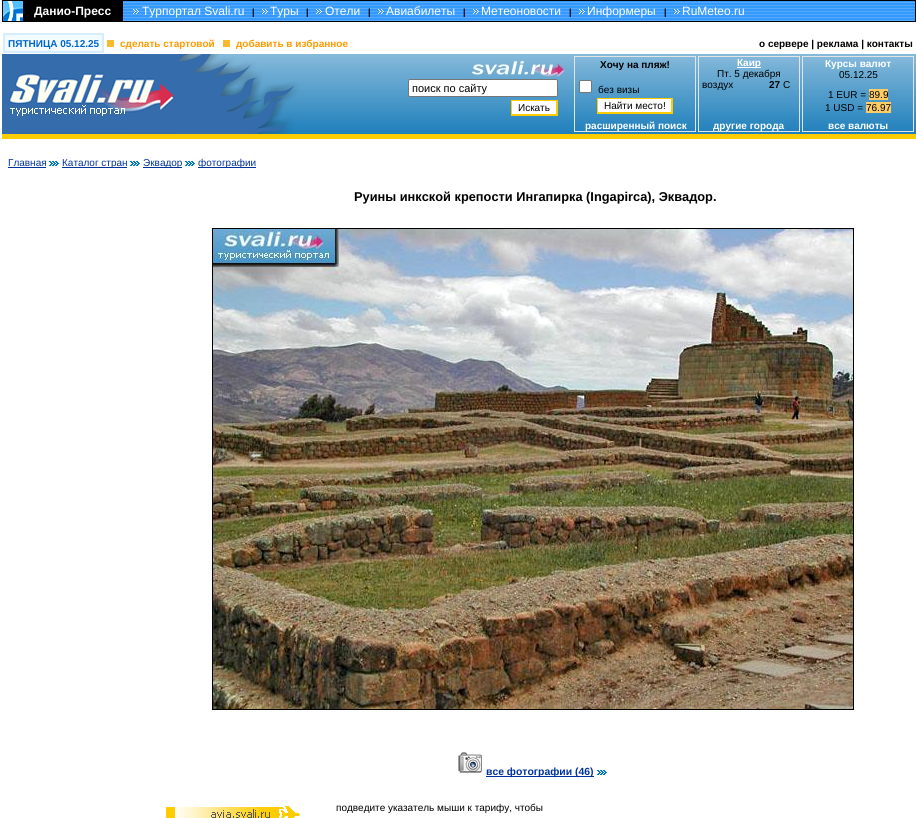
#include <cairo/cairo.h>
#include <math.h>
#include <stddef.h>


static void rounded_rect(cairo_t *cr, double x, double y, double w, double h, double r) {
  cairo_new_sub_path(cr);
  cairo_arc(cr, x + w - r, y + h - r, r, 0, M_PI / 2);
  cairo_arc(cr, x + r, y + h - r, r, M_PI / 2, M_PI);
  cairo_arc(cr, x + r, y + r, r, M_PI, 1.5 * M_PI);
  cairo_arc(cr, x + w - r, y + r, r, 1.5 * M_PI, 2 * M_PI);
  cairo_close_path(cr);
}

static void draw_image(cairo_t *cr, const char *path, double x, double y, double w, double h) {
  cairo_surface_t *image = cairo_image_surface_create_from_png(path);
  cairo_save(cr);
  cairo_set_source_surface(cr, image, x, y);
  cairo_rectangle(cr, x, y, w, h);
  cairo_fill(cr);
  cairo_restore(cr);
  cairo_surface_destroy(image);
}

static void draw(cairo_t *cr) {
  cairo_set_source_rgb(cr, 1, 1, 1);
  cairo_paint(cr);
  cairo_set_source_rgb(cr, 0, 0, 0);
  cairo_rectangle(cr, 2, 0, 914, 22);
  cairo_fill(cr);
  draw_image(cr, "images/1.png", 3, 1, 20, 20);
  cairo_set_source_rgb(cr, 51 / 255.0, 153 / 255.0, 1);
  cairo_rectangle(cr, 123, 1, 792, 1);
  cairo_fill(cr);
  draw_image(cr, "images/2.png", 123, 2, 792, 19);
  draw_image(cr, "images/3.png", 133, 9, 6, 5);
  draw_image(cr, "images/3.png", 262, 9, 6, 5);
  draw_image(cr, "images/3.png", 316, 9, 6, 5);
  draw_image(cr, "images/3.png", 378, 9, 6, 5);
  draw_image(cr, "images/3.png", 473, 9, 6, 5);
  draw_image(cr, "images/3.png", 579, 9, 6, 5);
  draw_image(cr, "images/3.png", 674, 9, 6, 5);
  cairo_set_source_rgb(cr, 242 / 255.0, 251 / 255.0, 1);
  cairo_rectangle(cr, 4, 34, 99, 18);
  cairo_fill_preserve(cr);
  cairo_set_source_rgb(cr, 213 / 255.0, 237 / 255.0, 253 / 255.0);
  cairo_stroke(cr);
  cairo_set_source_rgb(cr, 246 / 255.0, 187 / 255.0, 44 / 255.0);
  cairo_rectangle(cr, 107, 40, 7, 7);
  cairo_fill(cr);
  cairo_rectangle(cr, 223, 40, 7, 7);
  cairo_fill(cr);
  draw_image(cr, "images/4.png", 299, 54, 617, 80);
  draw_image(cr, "images/5.png", 2, 54, 174, 80);
  draw_image(cr, "images/6.png", 176, 54, 123, 80);
  draw_image(cr, "images/7.png", 471, 59, 94, 18);
  cairo_set_source_rgb(cr, 1, 1, 1);
  rounded_rect(cr, 408.5, 79.5, 149, 17, 1.5);
  cairo_fill_preserve(cr);
  cairo_set_source_rgb(cr, 118 / 255.0, 118 / 255.0, 118 / 255.0);
  cairo_set_line_width(cr, 1);
  cairo_stroke(cr);
  cairo_set_source_rgb(cr, 1, 1, 1);
  cairo_rectangle(cr, 512, 101, 44, 13);
  cairo_fill(cr);
  cairo_set_source_rgb(cr, 1, 204 / 255.0, 0);
  cairo_rectangle(cr, 511, 100, 47, 1);
  cairo_fill(cr);
  cairo_rectangle(cr, 556, 100, 2, 16);
  cairo_fill(cr);
  cairo_rectangle(cr, 511, 114, 47, 2);
  cairo_fill(cr);
  cairo_rectangle(cr, 511, 100, 1, 16);
  cairo_fill(cr);
  cairo_rectangle(cr, 574.5, 56.5, 121, 75);
  cairo_set_source_rgb(cr, 228 / 255.0, 228 / 255.0, 228 / 255.0);
  cairo_stroke(cr);
  cairo_set_source_rgb(cr, 1, 1, 1);
  rounded_rect(cr, 579.5, 80.5, 12, 12, 1.5);
  cairo_fill_preserve(cr);
  cairo_set_source_rgb(cr, 118 / 255.0, 118 / 255.0, 118 / 255.0);
  cairo_stroke(cr);
  cairo_set_source_rgb(cr, 1, 1, 1);
  cairo_rectangle(cr, 598, 99, 73, 13);
  cairo_fill(cr);
  cairo_set_source_rgb(cr, 1, 204 / 255.0, 0);
  cairo_rectangle(cr, 597, 98, 76, 1);
  cairo_fill(cr);
  cairo_rectangle(cr, 671, 98, 2, 16);
  cairo_fill(cr);
  cairo_rectangle(cr, 597, 112, 76, 2);
  cairo_fill(cr);
  cairo_rectangle(cr, 597, 98, 1, 16);
  cairo_fill(cr);
  cairo_rectangle(cr, 698.5, 56.5, 101, 75);
  cairo_set_source_rgb(cr, 228 / 255.0, 228 / 255.0, 228 / 255.0);
  cairo_stroke(cr);
  cairo_set_source_rgb(cr, 1, 1, 1);
  cairo_rectangle(cr, 737, 67, 24, 1);
  cairo_fill(cr);
  cairo_rectangle(cr, 802.5, 56.5, 111, 75);
  cairo_set_source_rgb(cr, 228 / 255.0, 228 / 255.0, 228 / 255.0);
  cairo_stroke(cr);
  cairo_set_source_rgb(cr, 1, 204 / 255.0, 102 / 255.0);
  cairo_rectangle(cr, 869, 89, 19, 11);
  cairo_fill(cr);
  cairo_rectangle(cr, 866, 102, 25, 11);
  cairo_fill(cr);
  cairo_set_source_rgb(cr, 1, 204 / 255.0, 0);
  cairo_rectangle(cr, 2, 134, 914, 5);
  cairo_fill(cr);
  cairo_set_source_rgb(cr, 0, 51 / 255.0, 153 / 255.0);
  cairo_rectangle(cr, 8, 167, 38, 1);
  cairo_fill(cr);
  draw_image(cr, "images/8.png", 49, 161, 10, 5);
  cairo_rectangle(cr, 62, 167, 65, 1);
  cairo_fill(cr);
  draw_image(cr, "images/8.png", 130, 161, 10, 5);
  cairo_rectangle(cr, 143, 167, 39, 1);
  cairo_fill(cr);
  draw_image(cr, "images/8.png", 185, 161, 10, 5);
  cairo_rectangle(cr, 198, 167, 58, 1);
  cairo_fill(cr);
  cairo_rectangle(cr, 212.5, 228.5, 641, 481);
  cairo_set_source_rgb(cr, 0, 0, 0);
  cairo_stroke(cr);
  draw_image(cr, "images/9.png", 213, 229, 640, 480);
  draw_image(cr, "images/10.png", 458, 752, 24, 21);
  cairo_set_source_rgb(cr, 0, 51 / 255.0, 153 / 255.0);
  cairo_rectangle(cr, 486, 776, 108, 1);
  cairo_fill(cr);
  draw_image(cr, "images/8.png", 597, 770, 10, 5);
  draw_image(cr, "images/11.png", 166, 806, 134, 12);
  cairo_select_font_face(cr, "Liberation Sans", CAIRO_FONT_SLANT_NORMAL, CAIRO_FONT_WEIGHT_BOLD);
  cairo_set_font_size(cr, 12);
  cairo_set_source_rgb(cr, 1, 1, 1);
  cairo_move_to(cr, 34, 15);
  cairo_show_text(cr, "Данио-Пресс");
  cairo_select_font_face(cr, "Liberation Sans", CAIRO_FONT_SLANT_NORMAL, CAIRO_FONT_WEIGHT_NORMAL);
  cairo_move_to(cr, 142, 15);
  cairo_show_text(cr, "Турпортал Svali.ru");
  cairo_select_font_face(cr, "Liberation Sans", CAIRO_FONT_SLANT_NORMAL, CAIRO_FONT_WEIGHT_BOLD);
  cairo_set_font_size(cr, 9);
  cairo_set_source_rgb(cr, 0, 0, 0);
  cairo_move_to(cr, 252, 15);
  cairo_show_text(cr, "|");
  cairo_select_font_face(cr, "Liberation Sans", CAIRO_FONT_SLANT_NORMAL, CAIRO_FONT_WEIGHT_NORMAL);
  cairo_set_font_size(cr, 12);
  cairo_set_source_rgb(cr, 1, 1, 1);
  cairo_move_to(cr, 270, 15);
  cairo_show_text(cr, "Туры");
  cairo_select_font_face(cr, "Liberation Sans", CAIRO_FONT_SLANT_NORMAL, CAIRO_FONT_WEIGHT_BOLD);
  cairo_set_font_size(cr, 9);
  cairo_set_source_rgb(cr, 0, 0, 0);
  cairo_move_to(cr, 306, 15);
  cairo_show_text(cr, "|");
  cairo_select_font_face(cr, "Liberation Sans", CAIRO_FONT_SLANT_NORMAL, CAIRO_FONT_WEIGHT_NORMAL);
  cairo_set_font_size(cr, 12);
  cairo_set_source_rgb(cr, 1, 1, 1);
  cairo_move_to(cr, 325, 15);
  cairo_show_text(cr, "Отели");
  cairo_select_font_face(cr, "Liberation Sans", CAIRO_FONT_SLANT_NORMAL, CAIRO_FONT_WEIGHT_BOLD);
  cairo_set_font_size(cr, 9);
  cairo_set_source_rgb(cr, 0, 0, 0);
  cairo_move_to(cr, 368, 15);
  cairo_show_text(cr, "|");
  cairo_select_font_face(cr, "Liberation Sans", CAIRO_FONT_SLANT_NORMAL, CAIRO_FONT_WEIGHT_NORMAL);
  cairo_set_font_size(cr, 12);
  cairo_set_source_rgb(cr, 1, 1, 1);
  cairo_move_to(cr, 386, 15);
  cairo_show_text(cr, "Авиабилеты");
  cairo_select_font_face(cr, "Liberation Sans", CAIRO_FONT_SLANT_NORMAL, CAIRO_FONT_WEIGHT_BOLD);
  cairo_set_font_size(cr, 9);
  cairo_set_source_rgb(cr, 0, 0, 0);
  cairo_move_to(cr, 463, 15);
  cairo_show_text(cr, "|");
  cairo_select_font_face(cr, "Liberation Sans", CAIRO_FONT_SLANT_NORMAL, CAIRO_FONT_WEIGHT_NORMAL);
  cairo_set_font_size(cr, 12);
  cairo_set_source_rgb(cr, 1, 1, 1);
  cairo_move_to(cr, 481, 15);
  cairo_show_text(cr, "Метеоновости");
  cairo_select_font_face(cr, "Liberation Sans", CAIRO_FONT_SLANT_NORMAL, CAIRO_FONT_WEIGHT_BOLD);
  cairo_set_font_size(cr, 9);
  cairo_set_source_rgb(cr, 0, 0, 0);
  cairo_move_to(cr, 569, 15);
  cairo_show_text(cr, "|");
  cairo_select_font_face(cr, "Liberation Sans", CAIRO_FONT_SLANT_NORMAL, CAIRO_FONT_WEIGHT_NORMAL);
  cairo_set_font_size(cr, 12);
  cairo_set_source_rgb(cr, 1, 1, 1);
  cairo_move_to(cr, 587, 15);
  cairo_show_text(cr, "Информеры");
  cairo_select_font_face(cr, "Liberation Sans", CAIRO_FONT_SLANT_NORMAL, CAIRO_FONT_WEIGHT_BOLD);
  cairo_set_font_size(cr, 9);
  cairo_set_source_rgb(cr, 0, 0, 0);
  cairo_move_to(cr, 664, 15);
  cairo_show_text(cr, "|");
  cairo_select_font_face(cr, "Liberation Sans", CAIRO_FONT_SLANT_NORMAL, CAIRO_FONT_WEIGHT_NORMAL);
  cairo_set_font_size(cr, 12);
  cairo_set_source_rgb(cr, 1, 1, 1);
  cairo_move_to(cr, 682, 15);
  cairo_show_text(cr, "RuMeteo.ru");
  cairo_select_font_face(cr, "Liberation Sans", CAIRO_FONT_SLANT_NORMAL, CAIRO_FONT_WEIGHT_BOLD);
  cairo_set_font_size(cr, 10);
  cairo_set_source_rgb(cr, 0, 102 / 255.0, 204 / 255.0);
  cairo_move_to(cr, 8, 47);
  cairo_show_text(cr, "ПЯТНИЦА 05.12.25");
  cairo_set_source_rgb(cr, 1, 153 / 255.0, 0);
  cairo_move_to(cr, 120, 47);
  cairo_show_text(cr, "сделать стартовой");
  cairo_move_to(cr, 236, 47);
  cairo_show_text(cr, "добавить в избранное");
  cairo_set_source_rgb(cr, 0, 0, 0);
  cairo_move_to(cr, 759, 47);
  cairo_show_text(cr, "о сервере | реклама | контакты");
  cairo_select_font_face(cr, "Liberation Sans", CAIRO_FONT_SLANT_NORMAL, CAIRO_FONT_WEIGHT_NORMAL);
  cairo_set_font_size(cr, 11);
  cairo_move_to(cr, 412, 92);
  cairo_show_text(cr, "поиск по сайту");
  cairo_set_font_size(cr, 10);
  cairo_move_to(cr, 518, 111);
  cairo_show_text(cr, "Искать");
  cairo_select_font_face(cr, "Liberation Sans", CAIRO_FONT_SLANT_NORMAL, CAIRO_FONT_WEIGHT_BOLD);
  cairo_move_to(cr, 600, 68);
  cairo_show_text(cr, "Хочу на пляж!");
  cairo_select_font_face(cr, "Liberation Sans", CAIRO_FONT_SLANT_NORMAL, CAIRO_FONT_WEIGHT_NORMAL);
  cairo_move_to(cr, 598, 93);
  cairo_show_text(cr, "без визы");
  cairo_move_to(cr, 604, 109);
  cairo_show_text(cr, "Найти место!");
  cairo_select_font_face(cr, "Liberation Sans", CAIRO_FONT_SLANT_NORMAL, CAIRO_FONT_WEIGHT_BOLD);
  cairo_set_source_rgb(cr, 1, 1, 1);
  cairo_move_to(cr, 585, 129);
  cairo_show_text(cr, "расширенный поиск");
  cairo_move_to(cr, 737, 66);
  cairo_show_text(cr, "Каир");
  cairo_select_font_face(cr, "Liberation Sans", CAIRO_FONT_SLANT_NORMAL, CAIRO_FONT_WEIGHT_NORMAL);
  cairo_set_source_rgb(cr, 0, 0, 0);
  cairo_move_to(cr, 717, 77);
  cairo_show_text(cr, "Пт. 5 декабря");
  cairo_move_to(cr, 702, 88);
  cairo_show_text(cr, "воздух");
  cairo_select_font_face(cr, "Liberation Sans", CAIRO_FONT_SLANT_NORMAL, CAIRO_FONT_WEIGHT_BOLD);
  cairo_move_to(cr, 769, 88);
  cairo_show_text(cr, "27");
  cairo_select_font_face(cr, "Liberation Sans", CAIRO_FONT_SLANT_NORMAL, CAIRO_FONT_WEIGHT_NORMAL);
  cairo_move_to(cr, 783, 88);
  cairo_show_text(cr, "C");
  cairo_select_font_face(cr, "Liberation Sans", CAIRO_FONT_SLANT_NORMAL, CAIRO_FONT_WEIGHT_BOLD);
  cairo_set_source_rgb(cr, 1, 1, 1);
  cairo_move_to(cr, 713, 129);
  cairo_show_text(cr, "другие города");
  cairo_move_to(cr, 825, 67);
  cairo_show_text(cr, "Курсы валют");
  cairo_select_font_face(cr, "Liberation Sans", CAIRO_FONT_SLANT_NORMAL, CAIRO_FONT_WEIGHT_NORMAL);
  cairo_set_source_rgb(cr, 0, 0, 0);
  cairo_move_to(cr, 839, 78);
  cairo_show_text(cr, "05.12.25");
  cairo_move_to(cr, 828, 98);
  cairo_show_text(cr, "1 EUR =");
  cairo_move_to(cr, 869, 98);
  cairo_show_text(cr, "89.9");
  cairo_move_to(cr, 825, 111);
  cairo_show_text(cr, "1 USD =");
  cairo_move_to(cr, 866, 111);
  cairo_show_text(cr, "76.97");
  cairo_select_font_face(cr, "Liberation Sans", CAIRO_FONT_SLANT_NORMAL, CAIRO_FONT_WEIGHT_BOLD);
  cairo_set_source_rgb(cr, 1, 1, 1);
  cairo_move_to(cr, 828, 129);
  cairo_show_text(cr, "все валюты");
  cairo_select_font_face(cr, "Liberation Sans", CAIRO_FONT_SLANT_NORMAL, CAIRO_FONT_WEIGHT_NORMAL);
  cairo_set_source_rgb(cr, 0, 51 / 255.0, 153 / 255.0);
  cairo_move_to(cr, 8, 166);
  cairo_show_text(cr, "Главная");
  cairo_move_to(cr, 62, 166);
  cairo_show_text(cr, "Каталог стран");
  cairo_move_to(cr, 143, 166);
  cairo_show_text(cr, "Эквадор");
  cairo_move_to(cr, 198, 166);
  cairo_show_text(cr, "фотографии");
  cairo_select_font_face(cr, "Liberation Sans", CAIRO_FONT_SLANT_NORMAL, CAIRO_FONT_WEIGHT_BOLD);
  cairo_set_font_size(cr, 12.8);
  cairo_set_source_rgb(cr, 0, 0, 0);
  cairo_move_to(cr, 354, 201);
  cairo_show_text(cr, "Руины инкской крепости Ингапирка (Ingapirca), Эквадор.");
  cairo_set_font_size(cr, 10.4);
  cairo_set_source_rgb(cr, 0, 51 / 255.0, 153 / 255.0);
  cairo_move_to(cr, 486, 775);
  cairo_show_text(cr, "все фотографии (46)");
  cairo_select_font_face(cr, "Liberation Sans", CAIRO_FONT_SLANT_NORMAL, CAIRO_FONT_WEIGHT_NORMAL);
  cairo_set_font_size(cr, 10);
  cairo_set_source_rgb(cr, 0, 0, 0);
  cairo_move_to(cr, 336, 811);
  cairo_show_text(cr, "подведите указатель мыши к тарифу, чтобы");
}

int main(void) {
  cairo_surface_t *surface = cairo_image_surface_create(CAIRO_FORMAT_RGB24, 916, 818);
  cairo_t *cr = cairo_create(surface);
  cairo_font_options_t *options = cairo_font_options_create();
  cairo_font_options_set_hint_metrics(options, CAIRO_HINT_METRICS_OFF);
  cairo_font_options_set_hint_style(options, CAIRO_HINT_STYLE_NONE);
  cairo_set_font_options(cr, options);
  cairo_set_miter_limit(cr, 4);
  draw(cr);
  cairo_surface_write_to_png(surface, "out.png");
  cairo_font_options_destroy(options);
  cairo_destroy(cr);
  cairo_surface_destroy(surface);
  return 0;
}
